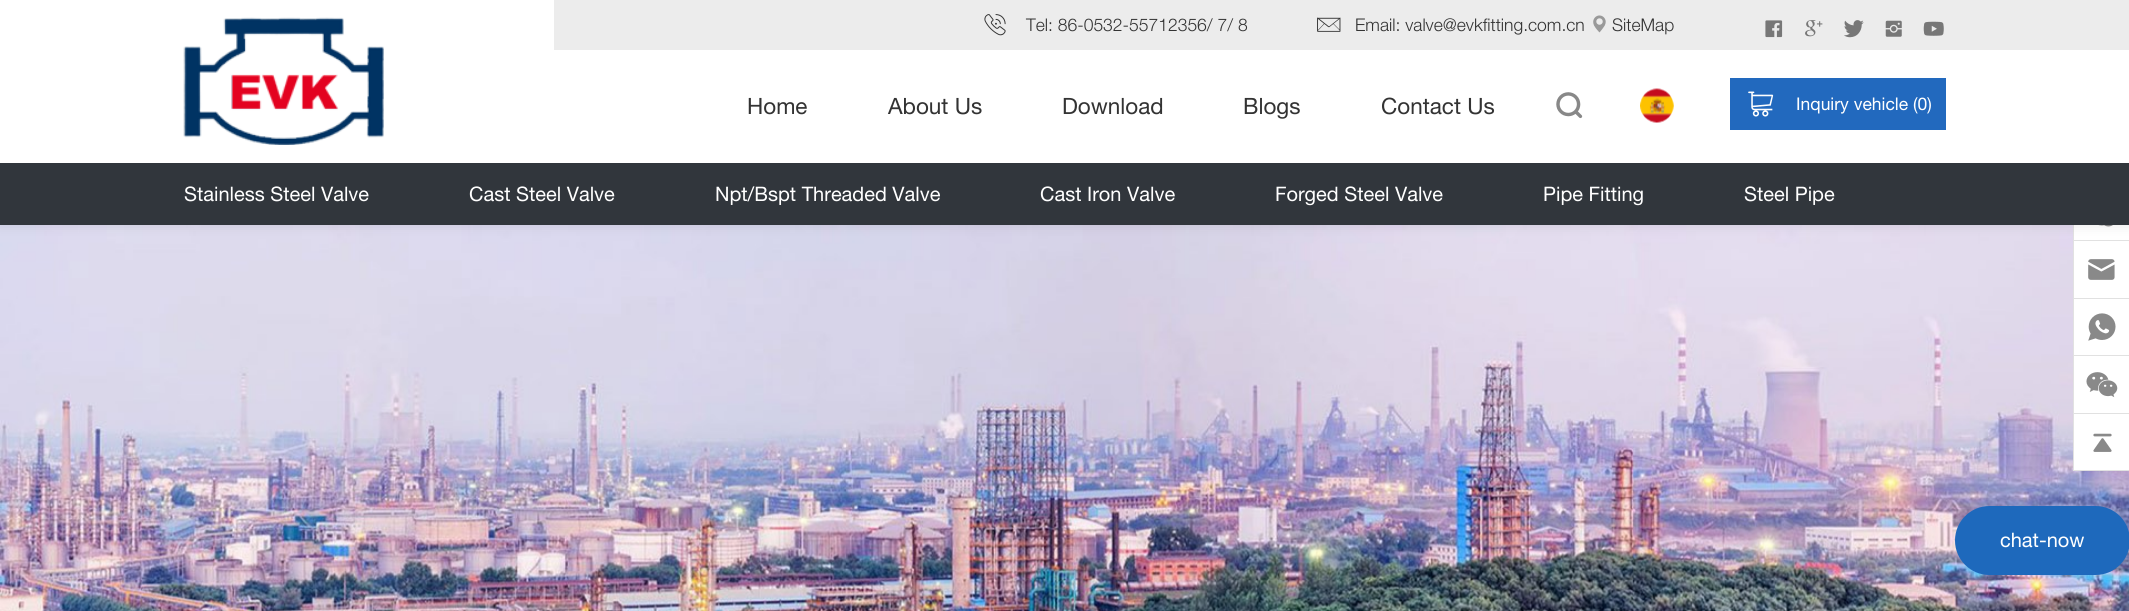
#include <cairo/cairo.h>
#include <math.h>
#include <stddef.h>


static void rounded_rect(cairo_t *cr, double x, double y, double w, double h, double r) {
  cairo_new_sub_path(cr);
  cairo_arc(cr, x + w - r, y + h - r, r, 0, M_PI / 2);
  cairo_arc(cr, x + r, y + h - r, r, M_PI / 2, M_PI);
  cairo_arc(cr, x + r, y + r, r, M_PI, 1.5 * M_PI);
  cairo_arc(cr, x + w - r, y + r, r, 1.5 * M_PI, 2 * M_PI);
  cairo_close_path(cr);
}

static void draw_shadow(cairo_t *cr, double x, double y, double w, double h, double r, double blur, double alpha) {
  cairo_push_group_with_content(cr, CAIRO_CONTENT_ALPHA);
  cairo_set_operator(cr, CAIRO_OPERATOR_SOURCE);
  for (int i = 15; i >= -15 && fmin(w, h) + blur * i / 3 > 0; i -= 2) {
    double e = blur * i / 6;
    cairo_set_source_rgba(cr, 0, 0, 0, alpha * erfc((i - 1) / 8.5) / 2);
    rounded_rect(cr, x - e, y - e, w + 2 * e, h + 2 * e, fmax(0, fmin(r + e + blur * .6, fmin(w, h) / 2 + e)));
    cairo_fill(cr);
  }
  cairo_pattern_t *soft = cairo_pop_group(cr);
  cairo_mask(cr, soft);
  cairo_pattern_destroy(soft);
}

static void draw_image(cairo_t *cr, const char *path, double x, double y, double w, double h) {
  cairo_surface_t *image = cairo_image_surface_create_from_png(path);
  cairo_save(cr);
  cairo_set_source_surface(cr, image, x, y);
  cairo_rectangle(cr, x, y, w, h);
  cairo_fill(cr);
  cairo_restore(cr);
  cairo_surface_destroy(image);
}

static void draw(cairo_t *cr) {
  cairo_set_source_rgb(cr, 1, 1, 1);
  cairo_paint(cr);
  draw_image(cr, "images/13.png", 0, 225, 2129, 386);
  cairo_set_source_rgb(cr, 1, 1, 1);
  cairo_rectangle(cr, 2074, 225, 55, 15);
  cairo_fill(cr);
  cairo_set_source_rgb(cr, 225 / 255.0, 225 / 255.0, 225 / 255.0);
  cairo_rectangle(cr, 2073, 240, 56, 1);
  cairo_fill(cr);
  cairo_rectangle(cr, 2073, 225, 1, 16);
  cairo_fill(cr);
  draw_image(cr, "images/14.png", 2098, 225, 15, 2);
  cairo_set_source_rgb(cr, 1, 1, 1);
  cairo_rectangle(cr, 2074, 241, 55, 57);
  cairo_fill(cr);
  cairo_set_source_rgb(cr, 225 / 255.0, 225 / 255.0, 225 / 255.0);
  cairo_rectangle(cr, 2073, 298, 56, 1);
  cairo_fill(cr);
  cairo_rectangle(cr, 2073, 241, 1, 58);
  cairo_fill(cr);
  cairo_set_source_rgb(cr, 0, 0, 0);
  draw_shadow(cr, 0, 0, 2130, 225, 0, 6, 0.1);
  cairo_set_source_rgb(cr, 236 / 255.0, 236 / 255.0, 236 / 255.0);
  cairo_rectangle(cr, 554, 0, 1575, 50);
  cairo_fill(cr);
  cairo_set_source_rgb(cr, 1, 1, 1);
  cairo_rectangle(cr, 0, 0, 554, 50);
  cairo_fill(cr);
  draw_image(cr, "images/1.png", 984, 14, 22, 22);
  draw_image(cr, "images/2.png", 1317, 17, 24, 15);
  draw_image(cr, "images/3.png", 1593, 15, 13, 18);
  draw_image(cr, "images/4.png", 1765, 20, 18, 18);
  draw_image(cr, "images/5.png", 1805, 20, 18, 17);
  draw_image(cr, "images/6.png", 1844, 20, 20, 18);
  draw_image(cr, "images/7.png", 1885, 20, 17, 17);
  draw_image(cr, "images/8.png", 1923, 21, 21, 15);
  cairo_set_source_rgb(cr, 49 / 255.0, 54 / 255.0, 60 / 255.0);
  cairo_rectangle(cr, 0, 163, 2129, 62);
  cairo_fill(cr);
  cairo_set_source_rgb(cr, 1, 1, 1);
  cairo_rectangle(cr, 0, 50, 2129, 113);
  cairo_fill(cr);
  draw_image(cr, "images/9.png", 183, 17, 201, 128);
  draw_image(cr, "images/10.png", 1556, 92, 27, 27);
  draw_image(cr, "images/11.png", 1640, 88, 34, 35);
  cairo_set_source_rgb(cr, 34 / 255.0, 105 / 255.0, 190 / 255.0);
  cairo_rectangle(cr, 1730, 78, 216, 52);
  cairo_fill(cr);
  draw_image(cr, "images/12.png", 1748, 91, 26, 26);
  draw_image(cr, "images/15.png", 2088, 259, 27, 21);
  cairo_set_source_rgb(cr, 1, 1, 1);
  cairo_rectangle(cr, 2074, 299, 55, 56);
  cairo_fill(cr);
  cairo_set_source_rgb(cr, 225 / 255.0, 225 / 255.0, 225 / 255.0);
  cairo_rectangle(cr, 2073, 355, 56, 1);
  cairo_fill(cr);
  cairo_rectangle(cr, 2073, 299, 1, 57);
  cairo_fill(cr);
  draw_image(cr, "images/16.png", 2088, 313, 28, 28);
  cairo_set_source_rgb(cr, 1, 1, 1);
  cairo_rectangle(cr, 2074, 356, 55, 57);
  cairo_fill(cr);
  cairo_set_source_rgb(cr, 225 / 255.0, 225 / 255.0, 225 / 255.0);
  cairo_rectangle(cr, 2073, 413, 56, 1);
  cairo_fill(cr);
  cairo_rectangle(cr, 2073, 356, 1, 58);
  cairo_fill(cr);
  draw_image(cr, "images/17.png", 2086, 372, 32, 26);
  cairo_set_source_rgb(cr, 1, 1, 1);
  cairo_rectangle(cr, 2074, 414, 55, 56);
  cairo_fill(cr);
  cairo_set_source_rgb(cr, 225 / 255.0, 225 / 255.0, 225 / 255.0);
  cairo_rectangle(cr, 2073, 470, 56, 1);
  cairo_fill(cr);
  cairo_rectangle(cr, 2073, 414, 1, 57);
  cairo_fill(cr);
  draw_image(cr, "images/18.png", 2093, 433, 19, 19);
  cairo_set_source_rgb(cr, 30 / 255.0, 105 / 255.0, 188 / 255.0);
  rounded_rect(cr, 1955, 506, 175, 69, 34.5);
  cairo_fill(cr);
  cairo_select_font_face(cr, "Helvetica Neue Light", CAIRO_FONT_SLANT_NORMAL, CAIRO_FONT_WEIGHT_NORMAL);
  cairo_set_font_size(cr, 17.5);
  cairo_set_source_rgb(cr, 51 / 255.0, 51 / 255.0, 51 / 255.0);
  cairo_move_to(cr, 1026, 31);
  cairo_show_text(cr, "Tel: 86-0532-55712356/ 7/ 8");
  cairo_move_to(cr, 1355, 31);
  cairo_show_text(cr, "Email: valve@evkfitting.com.cn");
  cairo_move_to(cr, 1612, 31);
  cairo_show_text(cr, "SiteMap");
  cairo_select_font_face(cr, "Helvetica Neue", CAIRO_FONT_SLANT_NORMAL, CAIRO_FONT_WEIGHT_NORMAL);
  cairo_set_font_size(cr, 22.5);
  cairo_move_to(cr, 747, 114);
  cairo_show_text(cr, "Home");
  cairo_move_to(cr, 888, 114);
  cairo_show_text(cr, "About Us");
  cairo_move_to(cr, 1062, 114);
  cairo_show_text(cr, "Download");
  cairo_move_to(cr, 1243, 114);
  cairo_show_text(cr, "Blogs");
  cairo_move_to(cr, 1381, 114);
  cairo_show_text(cr, "Contact Us");
  cairo_set_font_size(cr, 17.5);
  cairo_set_source_rgb(cr, 1, 1, 1);
  cairo_move_to(cr, 1796, 110);
  cairo_show_text(cr, "Inquiry vehicle (0)");
  cairo_set_font_size(cr, 20);
  cairo_move_to(cr, 184, 201);
  cairo_show_text(cr, "Stainless Steel Valve");
  cairo_move_to(cr, 469, 201);
  cairo_show_text(cr, "Cast Steel Valve");
  cairo_move_to(cr, 715, 201);
  cairo_show_text(cr, "Npt/Bspt Threaded Valve");
  cairo_move_to(cr, 1040, 201);
  cairo_show_text(cr, "Cast Iron Valve");
  cairo_move_to(cr, 1275, 201);
  cairo_show_text(cr, "Forged Steel Valve");
  cairo_move_to(cr, 1543, 201);
  cairo_show_text(cr, "Pipe Fitting");
  cairo_move_to(cr, 1744, 201);
  cairo_show_text(cr, "Steel Pipe");
  cairo_move_to(cr, 2000, 547);
  cairo_show_text(cr, "chat-now");
}

int main(void) {
  cairo_surface_t *surface = cairo_image_surface_create(CAIRO_FORMAT_RGB24, 2129, 611);
  cairo_t *cr = cairo_create(surface);
  cairo_font_options_t *options = cairo_font_options_create();
  cairo_font_options_set_hint_metrics(options, CAIRO_HINT_METRICS_OFF);
  cairo_font_options_set_hint_style(options, CAIRO_HINT_STYLE_NONE);
  cairo_set_font_options(cr, options);
  cairo_set_miter_limit(cr, 4);
  draw(cr);
  cairo_surface_write_to_png(surface, "out.png");
  cairo_font_options_destroy(options);
  cairo_destroy(cr);
  cairo_surface_destroy(surface);
  return 0;
}
